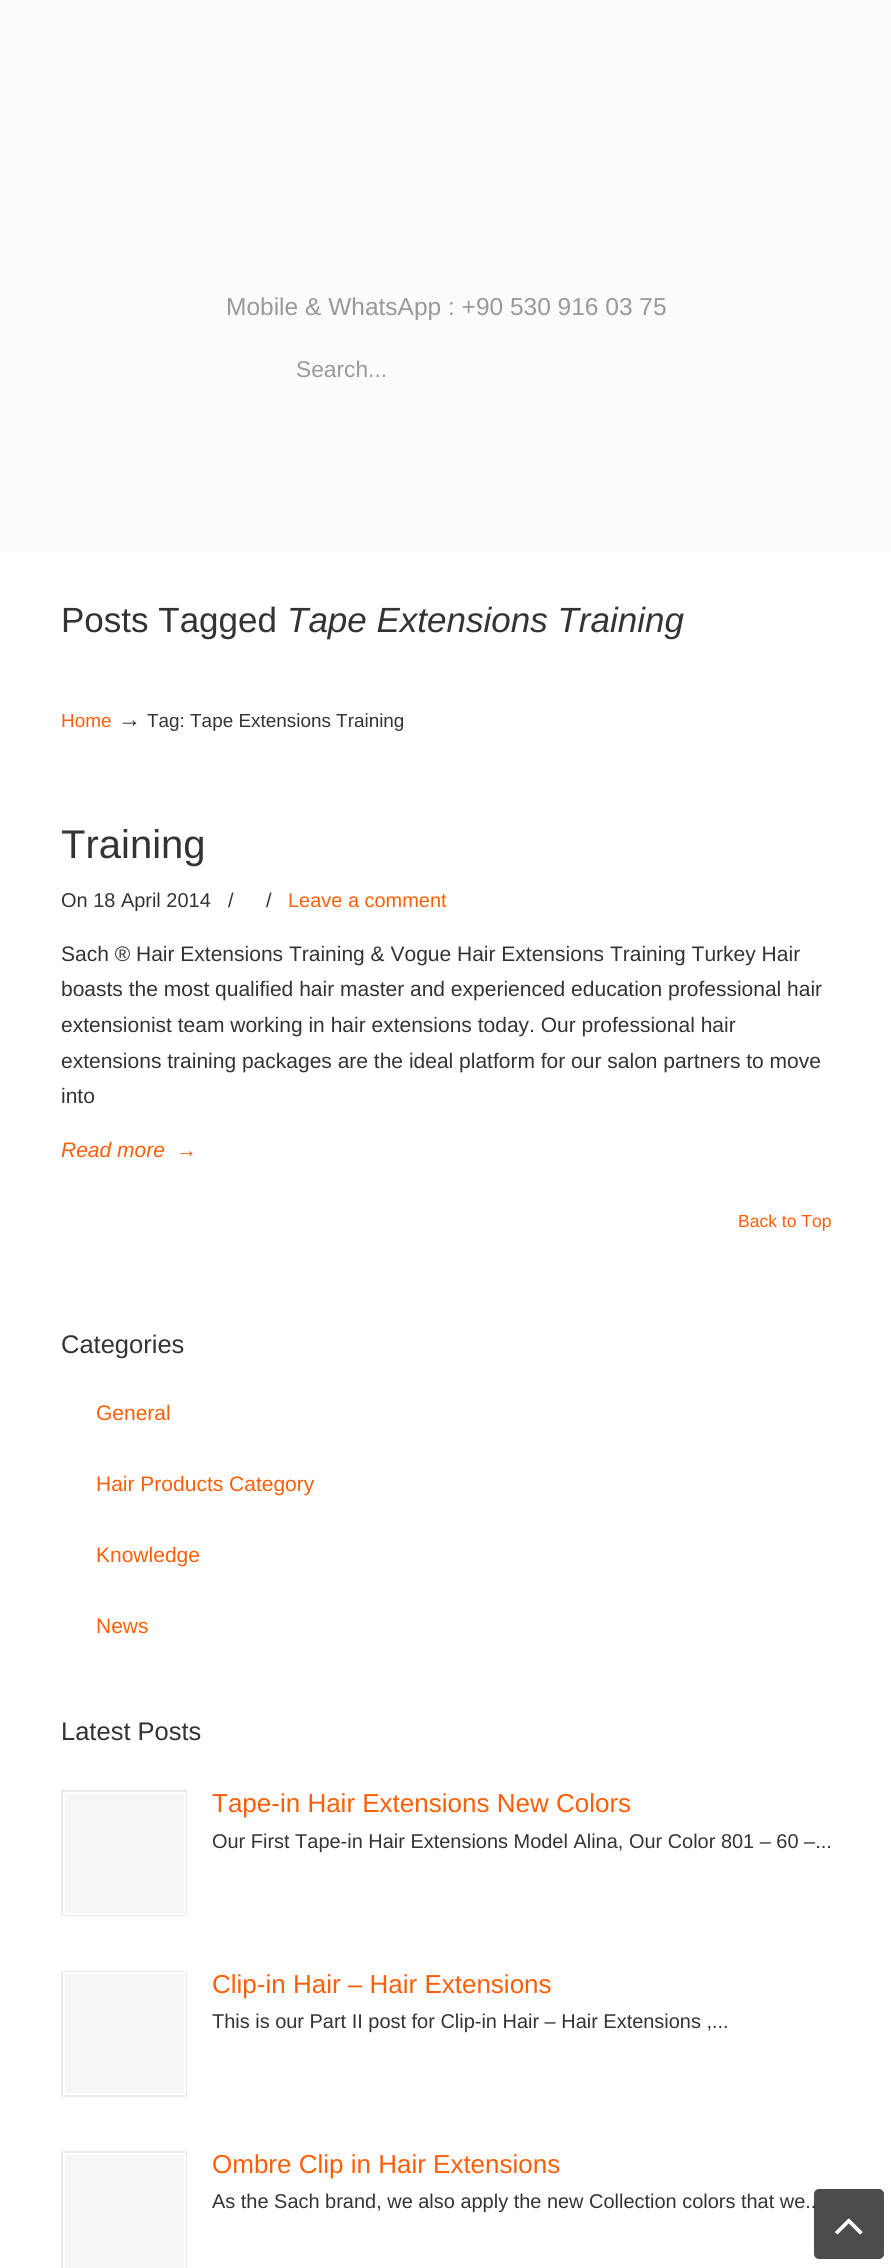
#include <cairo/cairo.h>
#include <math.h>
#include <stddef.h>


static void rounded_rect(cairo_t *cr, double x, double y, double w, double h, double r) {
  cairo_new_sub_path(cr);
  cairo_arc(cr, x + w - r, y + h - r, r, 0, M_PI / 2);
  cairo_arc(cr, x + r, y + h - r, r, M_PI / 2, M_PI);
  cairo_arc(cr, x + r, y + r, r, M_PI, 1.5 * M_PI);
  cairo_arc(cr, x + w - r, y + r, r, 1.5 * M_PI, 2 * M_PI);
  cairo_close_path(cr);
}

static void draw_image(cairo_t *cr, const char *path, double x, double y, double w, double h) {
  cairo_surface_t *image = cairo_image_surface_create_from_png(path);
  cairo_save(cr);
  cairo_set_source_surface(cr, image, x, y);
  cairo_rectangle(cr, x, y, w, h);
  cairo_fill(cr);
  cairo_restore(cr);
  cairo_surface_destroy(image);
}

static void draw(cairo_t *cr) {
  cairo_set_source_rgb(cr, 251 / 255.0, 251 / 255.0, 251 / 255.0);
  cairo_paint(cr);
  cairo_set_source_rgb(cr, 1, 1, 1);
  cairo_rectangle(cr, 0, 551, 891, 1717);
  cairo_fill(cr);
  cairo_set_source_rgb(cr, 246 / 255.0, 246 / 255.0, 246 / 255.0);
  cairo_rectangle(cr, 65, 1794, 119, 119);
  cairo_fill(cr);
  cairo_rectangle(cr, 62, 1791, 124, 124);
  cairo_set_source_rgb(cr, 234 / 255.0, 234 / 255.0, 234 / 255.0);
  cairo_stroke(cr);
  cairo_rectangle(cr, 64, 1793, 121, 121);
  cairo_set_source_rgb(cr, 1, 1, 1);
  cairo_stroke(cr);
  cairo_set_source_rgb(cr, 246 / 255.0, 246 / 255.0, 246 / 255.0);
  cairo_rectangle(cr, 65, 1974, 119, 119);
  cairo_fill(cr);
  cairo_rectangle(cr, 62, 1972, 124, 124);
  cairo_set_source_rgb(cr, 234 / 255.0, 234 / 255.0, 234 / 255.0);
  cairo_stroke(cr);
  cairo_rectangle(cr, 64, 1973, 121, 121);
  cairo_set_source_rgb(cr, 1, 1, 1);
  cairo_stroke(cr);
  cairo_set_source_rgb(cr, 246 / 255.0, 246 / 255.0, 246 / 255.0);
  cairo_rectangle(cr, 65, 2155, 119, 113);
  cairo_fill(cr);
  cairo_rectangle(cr, 62, 2152, 124, 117);
  cairo_set_source_rgb(cr, 234 / 255.0, 234 / 255.0, 234 / 255.0);
  cairo_stroke(cr);
  cairo_rectangle(cr, 64, 2154, 121, 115);
  cairo_set_source_rgb(cr, 1, 1, 1);
  cairo_stroke(cr);
  cairo_select_font_face(cr, "Liberation Sans", CAIRO_FONT_SLANT_NORMAL, CAIRO_FONT_WEIGHT_NORMAL);
  cairo_set_font_size(cr, 24.5);
  cairo_set_source_rgb(cr, 153 / 255.0, 153 / 255.0, 153 / 255.0);
  cairo_move_to(cr, 226, 315);
  cairo_show_text(cr, "Mobile & WhatsApp : +90 530 916 03 75");
  cairo_set_font_size(cr, 22.75);
  cairo_move_to(cr, 296, 377);
  cairo_show_text(cr, "Search...");
  cairo_set_font_size(cr, 35);
  cairo_set_source_rgb(cr, 51 / 255.0, 51 / 255.0, 51 / 255.0);
  cairo_move_to(cr, 61, 632);
  cairo_show_text(cr, "Posts Tagged");
  cairo_select_font_face(cr, "Liberation Sans", CAIRO_FONT_SLANT_ITALIC, CAIRO_FONT_WEIGHT_NORMAL);
  cairo_move_to(cr, 287, 632);
  cairo_show_text(cr, "Tape Extensions Training");
  cairo_select_font_face(cr, "Liberation Sans", CAIRO_FONT_SLANT_NORMAL, CAIRO_FONT_WEIGHT_NORMAL);
  cairo_set_font_size(cr, 18.9);
  cairo_set_source_rgb(cr, 254 / 255.0, 94 / 255.0, 8 / 255.0);
  cairo_move_to(cr, 61, 727);
  cairo_show_text(cr, "Home");
  cairo_set_font_size(cr, 23);
  cairo_set_source_rgb(cr, 51 / 255.0, 51 / 255.0, 51 / 255.0);
  cairo_move_to(cr, 118, 727);
  cairo_show_text(cr, "→");
  cairo_set_font_size(cr, 18.9);
  cairo_move_to(cr, 147, 727);
  cairo_show_text(cr, "Tag: Tape Extensions Training");
  cairo_set_font_size(cr, 40);
  cairo_move_to(cr, 61, 858);
  cairo_show_text(cr, "Training");
  cairo_set_font_size(cr, 19.95);
  cairo_move_to(cr, 61, 907);
  cairo_show_text(cr, "On 18 April 2014");
  cairo_move_to(cr, 228, 907);
  cairo_show_text(cr, "/");
  cairo_move_to(cr, 266, 907);
  cairo_show_text(cr, "/");
  cairo_set_source_rgb(cr, 254 / 255.0, 94 / 255.0, 8 / 255.0);
  cairo_move_to(cr, 288, 907);
  cairo_show_text(cr, "Leave a comment");
  cairo_set_font_size(cr, 21);
  cairo_set_source_rgb(cr, 51 / 255.0, 51 / 255.0, 51 / 255.0);
  cairo_move_to(cr, 61, 961);
  cairo_show_text(cr, "Sach ® Hair Extensions Training & Vogue Hair Extensions Training Turkey Hair");
  cairo_move_to(cr, 61, 996);
  cairo_show_text(cr, "boasts the most qualified hair master and experienced education professional hair");
  cairo_move_to(cr, 61, 1032);
  cairo_show_text(cr, "extensionist team working in hair extensions today. Our professional hair");
  cairo_move_to(cr, 61, 1068);
  cairo_show_text(cr, "extensions training packages are the ideal platform for our salon partners to move");
  cairo_move_to(cr, 61, 1103);
  cairo_show_text(cr, "into");
  cairo_select_font_face(cr, "Liberation Sans", CAIRO_FONT_SLANT_ITALIC, CAIRO_FONT_WEIGHT_NORMAL);
  cairo_set_source_rgb(cr, 254 / 255.0, 94 / 255.0, 8 / 255.0);
  cairo_move_to(cr, 61, 1157);
  cairo_show_text(cr, "Read more");
  cairo_select_font_face(cr, "Liberation Sans", CAIRO_FONT_SLANT_NORMAL, CAIRO_FONT_WEIGHT_NORMAL);
  cairo_move_to(cr, 176, 1157);
  cairo_show_text(cr, "→");
  cairo_set_font_size(cr, 17.5);
  cairo_move_to(cr, 738, 1227);
  cairo_show_text(cr, "Back to Top");
  cairo_set_font_size(cr, 25.5);
  cairo_set_source_rgb(cr, 51 / 255.0, 51 / 255.0, 51 / 255.0);
  cairo_move_to(cr, 61, 1353);
  cairo_show_text(cr, "Categories");
  cairo_set_font_size(cr, 21);
  cairo_set_source_rgb(cr, 254 / 255.0, 94 / 255.0, 8 / 255.0);
  cairo_move_to(cr, 96, 1420);
  cairo_show_text(cr, "General");
  cairo_move_to(cr, 96, 1491);
  cairo_show_text(cr, "Hair Products Category");
  cairo_move_to(cr, 96, 1562);
  cairo_show_text(cr, "Knowledge");
  cairo_move_to(cr, 96, 1633);
  cairo_show_text(cr, "News");
  cairo_set_font_size(cr, 25.5);
  cairo_set_source_rgb(cr, 51 / 255.0, 51 / 255.0, 51 / 255.0);
  cairo_move_to(cr, 61, 1740);
  cairo_show_text(cr, "Latest Posts");
  cairo_set_font_size(cr, 26);
  cairo_set_source_rgb(cr, 254 / 255.0, 94 / 255.0, 8 / 255.0);
  cairo_move_to(cr, 212, 1812);
  cairo_show_text(cr, "Tape-in Hair Extensions New Colors");
  cairo_set_font_size(cr, 19.95);
  cairo_set_source_rgb(cr, 51 / 255.0, 51 / 255.0, 51 / 255.0);
  cairo_move_to(cr, 212, 1848);
  cairo_show_text(cr, "Our First Tape-in Hair Extensions Model Alina, Our Color 801 – 60 –...");
  cairo_set_font_size(cr, 26);
  cairo_set_source_rgb(cr, 254 / 255.0, 94 / 255.0, 8 / 255.0);
  cairo_move_to(cr, 212, 1993);
  cairo_show_text(cr, "Clip-in Hair – Hair Extensions");
  cairo_set_font_size(cr, 19.95);
  cairo_set_source_rgb(cr, 51 / 255.0, 51 / 255.0, 51 / 255.0);
  cairo_move_to(cr, 212, 2028);
  cairo_show_text(cr, "This is our Part II post for Clip-in Hair – Hair Extensions ,...");
  cairo_set_font_size(cr, 26);
  cairo_set_source_rgb(cr, 254 / 255.0, 94 / 255.0, 8 / 255.0);
  cairo_move_to(cr, 212, 2173);
  cairo_show_text(cr, "Ombre Clip in Hair Extensions");
  cairo_set_font_size(cr, 19.95);
  cairo_set_source_rgb(cr, 51 / 255.0, 51 / 255.0, 51 / 255.0);
  cairo_move_to(cr, 212, 2208);
  cairo_show_text(cr, "As the Sach brand, we also apply the new Collection colors that we..");
  cairo_set_source_rgba(cr, 0, 0, 0, 0.7);
  rounded_rect(cr, 814, 2189, 70, 70, 5);
  cairo_fill(cr);
  draw_image(cr, "images/1.png", 835, 2218, 28, 17);
}

int main(void) {
  cairo_surface_t *surface = cairo_image_surface_create(CAIRO_FORMAT_RGB24, 891, 2268);
  cairo_t *cr = cairo_create(surface);
  cairo_font_options_t *options = cairo_font_options_create();
  cairo_font_options_set_hint_metrics(options, CAIRO_HINT_METRICS_OFF);
  cairo_font_options_set_hint_style(options, CAIRO_HINT_STYLE_NONE);
  cairo_set_font_options(cr, options);
  cairo_set_miter_limit(cr, 4);
  draw(cr);
  cairo_surface_write_to_png(surface, "out.png");
  cairo_font_options_destroy(options);
  cairo_destroy(cr);
  cairo_surface_destroy(surface);
  return 0;
}
